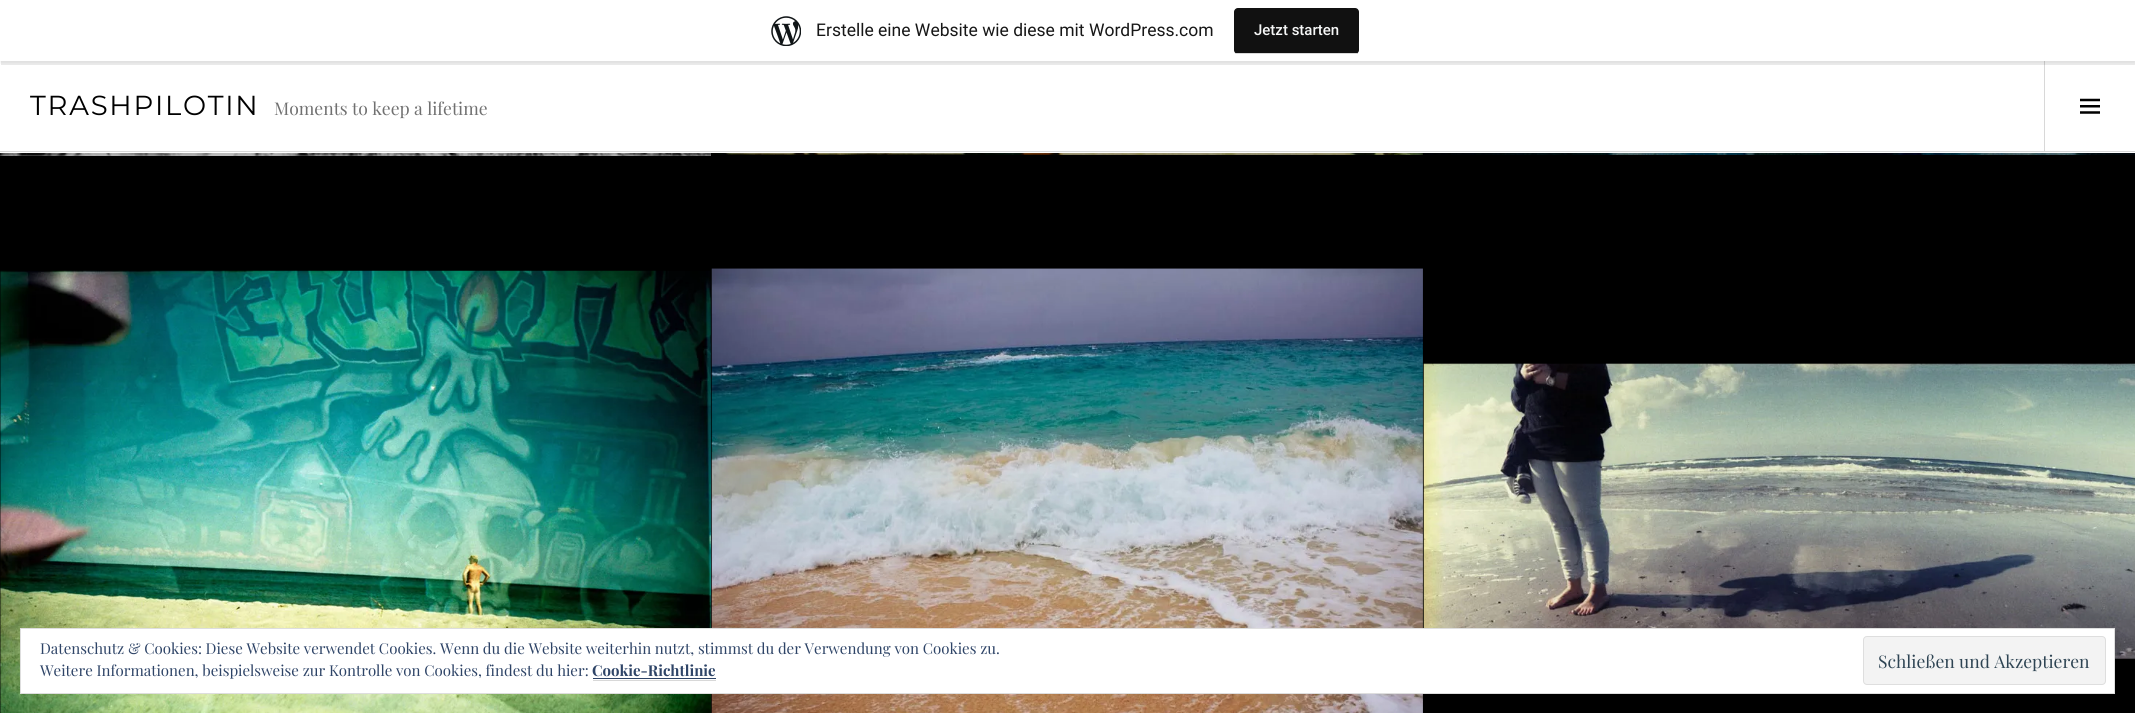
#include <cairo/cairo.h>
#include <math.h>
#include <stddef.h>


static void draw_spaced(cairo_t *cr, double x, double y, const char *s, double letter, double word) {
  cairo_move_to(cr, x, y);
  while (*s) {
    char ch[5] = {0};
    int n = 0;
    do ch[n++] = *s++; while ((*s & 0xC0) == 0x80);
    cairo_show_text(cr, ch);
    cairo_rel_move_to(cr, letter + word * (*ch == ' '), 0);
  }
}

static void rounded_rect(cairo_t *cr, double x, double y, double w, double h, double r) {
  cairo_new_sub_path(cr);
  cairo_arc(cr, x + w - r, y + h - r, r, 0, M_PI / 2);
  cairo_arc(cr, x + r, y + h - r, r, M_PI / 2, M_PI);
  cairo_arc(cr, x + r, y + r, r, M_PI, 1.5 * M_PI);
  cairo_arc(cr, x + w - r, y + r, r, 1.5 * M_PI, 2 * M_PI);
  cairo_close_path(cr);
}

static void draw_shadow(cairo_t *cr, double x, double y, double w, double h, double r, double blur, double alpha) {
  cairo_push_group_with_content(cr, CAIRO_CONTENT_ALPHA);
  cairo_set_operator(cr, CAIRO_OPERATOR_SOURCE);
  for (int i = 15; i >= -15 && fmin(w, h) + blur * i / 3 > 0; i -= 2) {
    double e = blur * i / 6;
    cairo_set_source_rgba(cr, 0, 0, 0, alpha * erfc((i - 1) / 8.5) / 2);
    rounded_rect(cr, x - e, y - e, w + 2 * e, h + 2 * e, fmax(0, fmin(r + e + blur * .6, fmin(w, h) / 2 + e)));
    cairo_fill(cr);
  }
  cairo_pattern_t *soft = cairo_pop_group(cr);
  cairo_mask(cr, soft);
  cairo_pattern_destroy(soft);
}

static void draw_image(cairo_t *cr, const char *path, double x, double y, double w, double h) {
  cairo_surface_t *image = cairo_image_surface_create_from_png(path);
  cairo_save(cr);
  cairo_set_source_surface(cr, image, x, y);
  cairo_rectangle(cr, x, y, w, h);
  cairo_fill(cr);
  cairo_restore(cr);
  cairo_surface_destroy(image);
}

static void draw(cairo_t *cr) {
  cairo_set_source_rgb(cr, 1, 1, 1);
  cairo_paint(cr);
  cairo_set_source_rgb(cr, 216 / 255.0, 216 / 255.0, 216 / 255.0);
  cairo_rectangle(cr, 2044, 61, 1, 90);
  cairo_fill(cr);
  cairo_set_source_rgb(cr, 0, 0, 0);
  draw_shadow(cr, 0, 1, 2135, 62, 0, 1, 0.05);
  cairo_set_source_rgba(cr, 0, 0, 0, 0.08);
  cairo_new_path(cr);
  cairo_move_to(cr, 1, 61);
  cairo_line_to(cr, 1, 65);
  cairo_line_to(cr, 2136, 65);
  cairo_line_to(cr, 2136, 4);
  cairo_line_to(cr, 2135, 4);
  cairo_line_to(cr, 2135, 61);
  cairo_close_path(cr);
  cairo_fill(cr);
  cairo_set_source_rgb(cr, 1, 1, 1);
  cairo_rectangle(cr, 0, 0, 2135, 61);
  cairo_fill(cr);
  draw_image(cr, "images/1.png", 771, 16, 30, 30);
  cairo_set_source_rgb(cr, 17 / 255.0, 17 / 255.0, 17 / 255.0);
  rounded_rect(cr, 1234, 8, 125, 46, 4);
  cairo_fill(cr);
  cairo_set_source_rgb(cr, 216 / 255.0, 216 / 255.0, 216 / 255.0);
  cairo_rectangle(cr, 1236, 53, 122, 1);
  cairo_fill(cr);
  cairo_rectangle(cr, 0, 151, 2135, 1);
  cairo_fill(cr);
  draw_image(cr, "images/2.png", 2080, 98, 20, 16);
  draw_image(cr, "images/3.png", 0, 153, 711, 3);
  cairo_set_source_rgba(cr, 0, 0, 0, 0.25);
  cairo_rectangle(cr, 0, 153, 711, 3);
  cairo_fill(cr);
  cairo_set_source_rgb(cr, 0, 0, 0);
  cairo_rectangle(cr, 711, 153, 713, 3);
  cairo_fill(cr);
  draw_image(cr, "images/4.png", 711, 153, 712, 2);
  cairo_rectangle(cr, 1424, 154, 711, 2);
  cairo_fill(cr);
  draw_image(cr, "images/5.png", 1423, 153, 712, 2);
  cairo_set_source_rgba(cr, 0, 0, 0, 0.25);
  cairo_rectangle(cr, 711, 153, 713, 2);
  cairo_fill(cr);
  cairo_rectangle(cr, 1424, 153, 711, 2);
  cairo_fill(cr);
  cairo_set_source_rgb(cr, 0, 0, 0);
  cairo_rectangle(cr, 0, 156, 2135, 557);
  cairo_fill(cr);
  draw_image(cr, "images/6.png", 0, 270, 711, 443);
  draw_image(cr, "images/7.png", 711, 268, 712, 445);
  draw_image(cr, "images/8.png", 1423, 363, 712, 296);
  cairo_set_source_rgb(cr, 1, 1, 1);
  cairo_rectangle(cr, 20.5, 628.5, 2094, 65);
  cairo_fill_preserve(cr);
  cairo_set_source_rgb(cr, 222 / 255.0, 222 / 255.0, 222 / 255.0);
  cairo_set_line_width(cr, 1);
  cairo_stroke(cr);
  cairo_set_source_rgb(cr, 216 / 255.0, 216 / 255.0, 216 / 255.0);
  cairo_rectangle(cr, 593, 680, 123, 1);
  cairo_fill(cr);
  cairo_set_source_rgb(cr, 46 / 255.0, 68 / 255.0, 103 / 255.0);
  cairo_rectangle(cr, 593, 678, 123, 1);
  cairo_fill(cr);
  cairo_set_source_rgb(cr, 243 / 255.0, 243 / 255.0, 243 / 255.0);
  rounded_rect(cr, 1863.5, 636.5, 242, 48, 3.5);
  cairo_fill_preserve(cr);
  cairo_set_source_rgb(cr, 222 / 255.0, 222 / 255.0, 222 / 255.0);
  cairo_stroke(cr);
  cairo_select_font_face(cr, "Roboto", CAIRO_FONT_SLANT_NORMAL, CAIRO_FONT_WEIGHT_NORMAL);
  cairo_set_font_size(cr, 17.5);
  cairo_set_source_rgb(cr, 23 / 255.0, 23 / 255.0, 23 / 255.0);
  cairo_move_to(cr, 816, 36);
  cairo_show_text(cr, "Erstelle eine Website wie diese mit WordPress.com");
  cairo_select_font_face(cr, "Roboto Medium", CAIRO_FONT_SLANT_NORMAL, CAIRO_FONT_WEIGHT_NORMAL);
  cairo_set_font_size(cr, 15);
  cairo_set_source_rgb(cr, 246 / 255.0, 247 / 255.0, 247 / 255.0);
  cairo_move_to(cr, 1254, 35);
  cairo_show_text(cr, "Jetzt starten");
  cairo_select_font_face(cr, "Montserrat", CAIRO_FONT_SLANT_NORMAL, CAIRO_FONT_WEIGHT_NORMAL);
  cairo_set_font_size(cr, 27.5);
  cairo_set_source_rgb(cr, 0, 0, 0);
  draw_spaced(cr, 30, 115, "TRASHPILOTIN", 1.75, 0);
  cairo_select_font_face(cr, "Playfair Display", CAIRO_FONT_SLANT_NORMAL, CAIRO_FONT_WEIGHT_NORMAL);
  cairo_set_font_size(cr, 17.5);
  cairo_set_source_rgb(cr, 112 / 255.0, 112 / 255.0, 112 / 255.0);
  cairo_move_to(cr, 274, 115);
  cairo_show_text(cr, "Moments to keep a lifetime");
  cairo_set_font_size(cr, 15);
  cairo_set_source_rgb(cr, 46 / 255.0, 68 / 255.0, 103 / 255.0);
  cairo_move_to(cr, 40, 654);
  cairo_show_text(cr, "Datenschutz & Cookies: Diese Website verwendet Cookies. Wenn du die Website weiterhin nutzt, stimmst du der Verwendung von Cookies zu.");
  cairo_move_to(cr, 40, 676);
  cairo_show_text(cr, "Weitere Informationen, beispielsweise zur Kontrolle von Cookies, findest du hier:");
  cairo_select_font_face(cr, "Playfair Display", CAIRO_FONT_SLANT_NORMAL, CAIRO_FONT_WEIGHT_BOLD);
  cairo_move_to(cr, 592, 676);
  cairo_show_text(cr, "Cookie-Richtlinie");
  cairo_select_font_face(cr, "Playfair Display", CAIRO_FONT_SLANT_NORMAL, CAIRO_FONT_WEIGHT_NORMAL);
  cairo_set_font_size(cr, 17.5);
  cairo_set_source_rgb(cr, 46 / 255.0, 68 / 255.0, 83 / 255.0);
  cairo_move_to(cr, 1878, 668);
  cairo_show_text(cr, "Schließen und Akzeptieren");
}

int main(void) {
  cairo_surface_t *surface = cairo_image_surface_create(CAIRO_FORMAT_RGB24, 2135, 713);
  cairo_t *cr = cairo_create(surface);
  cairo_font_options_t *options = cairo_font_options_create();
  cairo_font_options_set_hint_metrics(options, CAIRO_HINT_METRICS_OFF);
  cairo_font_options_set_hint_style(options, CAIRO_HINT_STYLE_NONE);
  cairo_set_font_options(cr, options);
  cairo_set_miter_limit(cr, 4);
  draw(cr);
  cairo_surface_write_to_png(surface, "out.png");
  cairo_font_options_destroy(options);
  cairo_destroy(cr);
  cairo_surface_destroy(surface);
  return 0;
}
